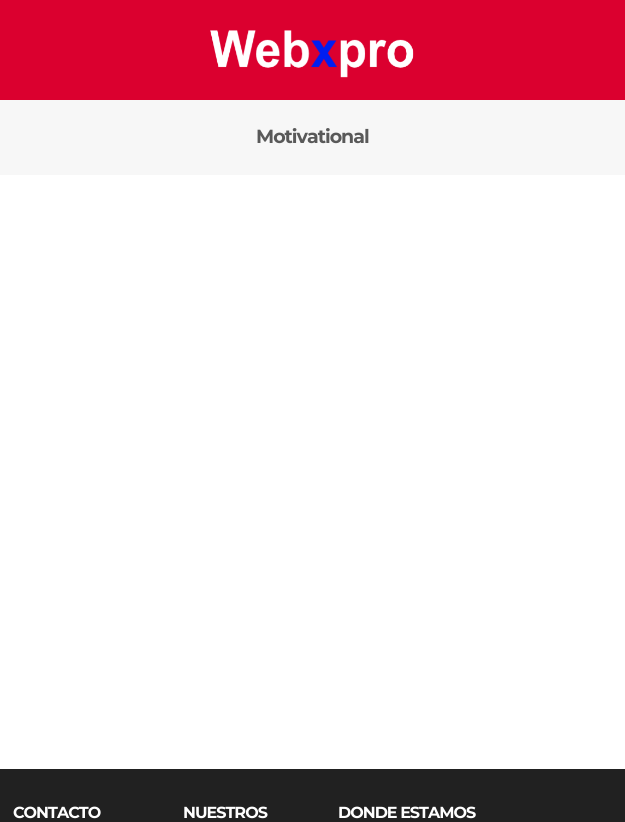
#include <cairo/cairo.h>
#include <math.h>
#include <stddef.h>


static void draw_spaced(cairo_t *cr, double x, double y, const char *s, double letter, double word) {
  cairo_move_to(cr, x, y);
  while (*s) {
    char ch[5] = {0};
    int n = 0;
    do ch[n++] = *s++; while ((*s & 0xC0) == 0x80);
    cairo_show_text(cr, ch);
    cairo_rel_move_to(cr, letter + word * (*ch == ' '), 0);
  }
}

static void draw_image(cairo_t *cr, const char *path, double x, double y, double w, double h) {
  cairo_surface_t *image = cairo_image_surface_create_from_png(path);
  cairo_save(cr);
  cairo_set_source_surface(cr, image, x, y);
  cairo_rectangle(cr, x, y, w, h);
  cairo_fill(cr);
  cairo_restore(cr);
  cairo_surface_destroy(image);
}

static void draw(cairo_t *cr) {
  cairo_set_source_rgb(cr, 1, 1, 1);
  cairo_paint(cr);
  cairo_set_source_rgb(cr, 219 / 255.0, 0, 47 / 255.0);
  cairo_rectangle(cr, 0, 0, 625, 100);
  cairo_fill(cr);
  draw_image(cr, "images/1.png", 210, 30, 204, 48);
  cairo_set_source_rgb(cr, 247 / 255.0, 247 / 255.0, 247 / 255.0);
  cairo_rectangle(cr, 0, 100, 625, 75);
  cairo_fill(cr);
  cairo_set_source_rgb(cr, 33 / 255.0, 33 / 255.0, 33 / 255.0);
  cairo_rectangle(cr, 0, 769, 625, 53);
  cairo_fill(cr);
  cairo_select_font_face(cr, "Montserrat", CAIRO_FONT_SLANT_NORMAL, CAIRO_FONT_WEIGHT_BOLD);
  cairo_set_font_size(cr, 19);
  cairo_set_source_rgb(cr, 89 / 255.0, 89 / 255.0, 89 / 255.0);
  draw_spaced(cr, 256, 143, "Motivational", -1, 0);
  cairo_set_font_size(cr, 16);
  cairo_set_source_rgb(cr, 1, 1, 1);
  draw_spaced(cr, 13, 818, "CONTACTO", -1, 0);
  draw_spaced(cr, 183, 818, "NUESTROS", -1, 0);
  draw_spaced(cr, 338, 818, "DONDE ESTAMOS", -1, 0);
}

int main(void) {
  cairo_surface_t *surface = cairo_image_surface_create(CAIRO_FORMAT_RGB24, 625, 822);
  cairo_t *cr = cairo_create(surface);
  cairo_font_options_t *options = cairo_font_options_create();
  cairo_font_options_set_hint_metrics(options, CAIRO_HINT_METRICS_OFF);
  cairo_font_options_set_hint_style(options, CAIRO_HINT_STYLE_NONE);
  cairo_set_font_options(cr, options);
  cairo_set_miter_limit(cr, 4);
  draw(cr);
  cairo_surface_write_to_png(surface, "out.png");
  cairo_font_options_destroy(options);
  cairo_destroy(cr);
  cairo_surface_destroy(surface);
  return 0;
}
